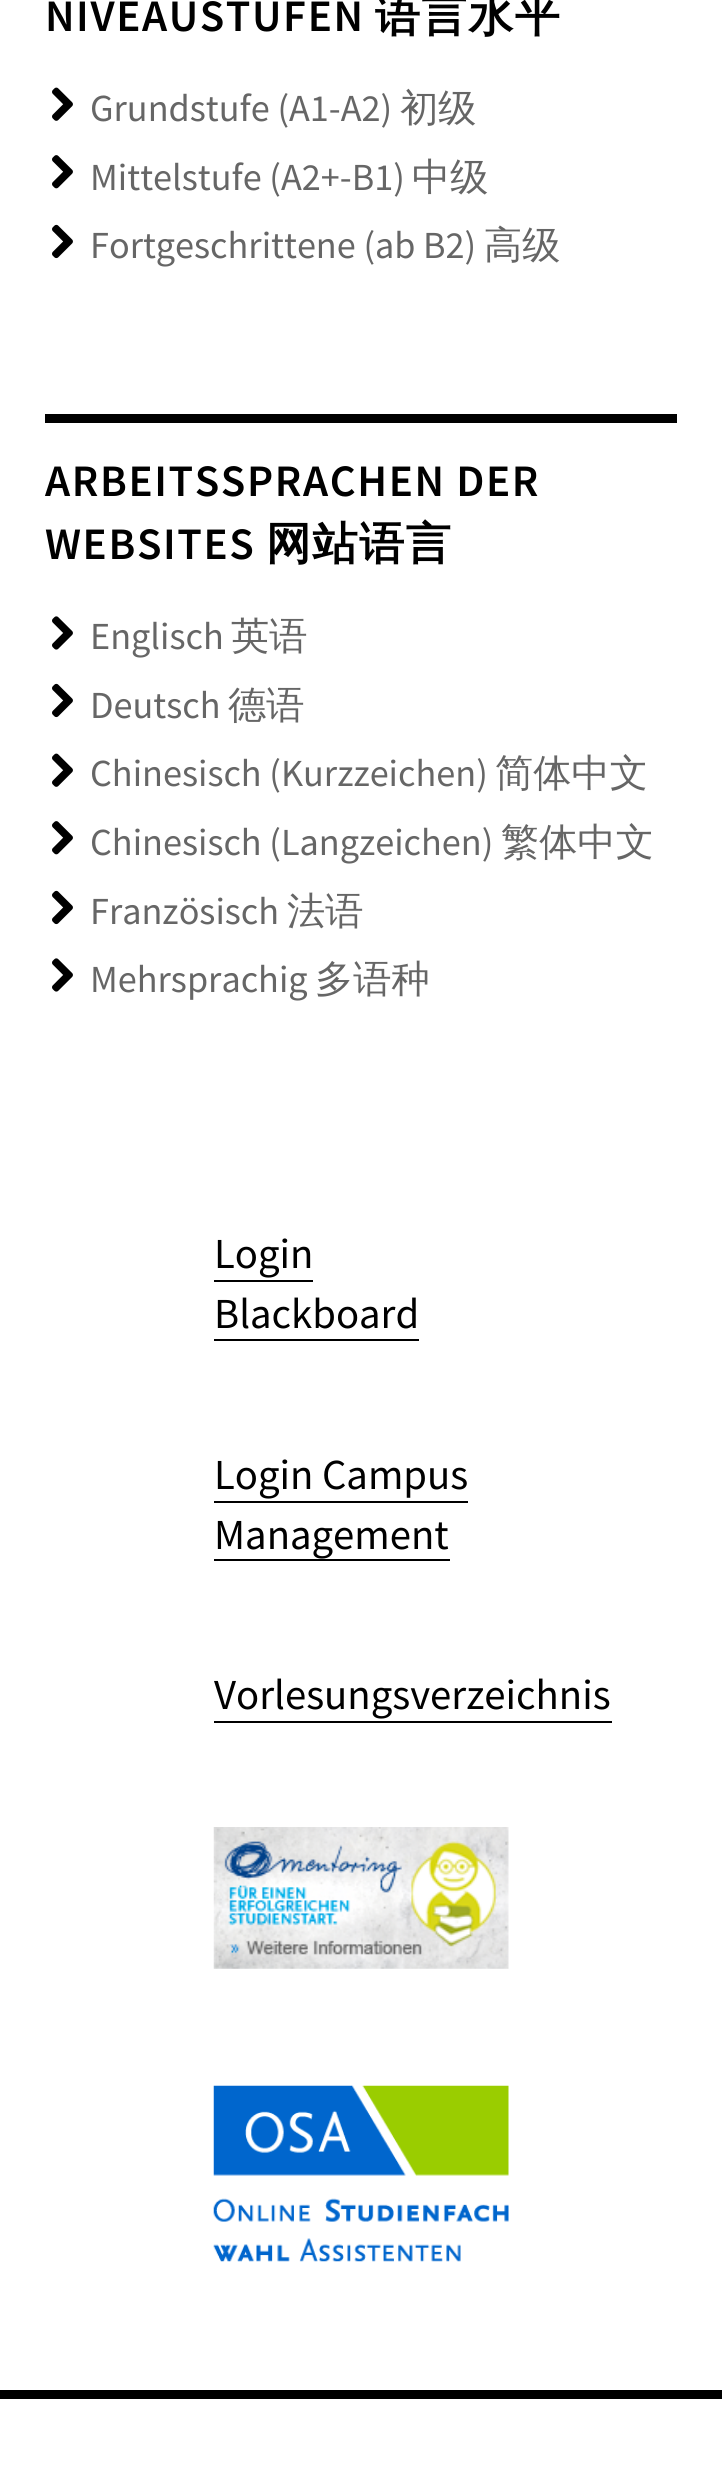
#include <cairo/cairo.h>
#include <math.h>
#include <stddef.h>


static void draw_spaced(cairo_t *cr, double x, double y, const char *s, double letter, double word) {
  cairo_move_to(cr, x, y);
  while (*s) {
    char ch[5] = {0};
    int n = 0;
    do ch[n++] = *s++; while ((*s & 0xC0) == 0x80);
    cairo_show_text(cr, ch);
    cairo_rel_move_to(cr, letter + word * (*ch == ' '), 0);
  }
}

static void draw_image(cairo_t *cr, const char *path, double x, double y, double w, double h) {
  cairo_surface_t *image = cairo_image_surface_create_from_png(path);
  cairo_save(cr);
  cairo_set_source_surface(cr, image, x, y);
  cairo_rectangle(cr, x, y, w, h);
  cairo_fill(cr);
  cairo_restore(cr);
  cairo_surface_destroy(image);
}

static void draw(cairo_t *cr) {
  cairo_set_source_rgb(cr, 1, 1, 1);
  cairo_paint(cr);
  draw_image(cr, "images/1.png", 52, 87, 21, 34);
  draw_image(cr, "images/2.png", 52, 155, 21, 34);
  draw_image(cr, "images/3.png", 52, 224, 21, 35);
  cairo_set_source_rgb(cr, 0, 0, 0);
  cairo_rectangle(cr, 45, 414, 632, 9);
  cairo_fill(cr);
  draw_image(cr, "images/4.png", 52, 616, 21, 34);
  draw_image(cr, "images/3.png", 52, 683, 21, 35);
  draw_image(cr, "images/1.png", 52, 753, 21, 34);
  draw_image(cr, "images/2.png", 52, 821, 21, 34);
  draw_image(cr, "images/3.png", 52, 890, 21, 35);
  draw_image(cr, "images/4.png", 52, 958, 21, 34);
  cairo_rectangle(cr, 214, 1280, 99, 2);
  cairo_fill(cr);
  cairo_rectangle(cr, 214, 1339, 205, 2);
  cairo_fill(cr);
  cairo_rectangle(cr, 214, 1501, 254, 2);
  cairo_fill(cr);
  cairo_rectangle(cr, 214, 1559, 236, 2);
  cairo_fill(cr);
  cairo_rectangle(cr, 214, 1721, 398, 2);
  cairo_fill(cr);
  draw_image(cr, "images/5.png", 213, 1827, 296, 142);
  draw_image(cr, "images/6.png", 213, 2085, 296, 177);
  cairo_rectangle(cr, 0, 2390, 722, 9);
  cairo_fill(cr);
  cairo_select_font_face(cr, "Source Sans Pro SemiBold", CAIRO_FONT_SLANT_NORMAL, CAIRO_FONT_WEIGHT_NORMAL);
  cairo_set_font_size(cr, 45);
  draw_spaced(cr, 45, 31, "NIVEAUSTUFEN", 1.6, 0);
  cairo_select_font_face(cr, "WenQuanYi Zen Hei", CAIRO_FONT_SLANT_NORMAL, CAIRO_FONT_WEIGHT_BOLD);
  draw_spaced(cr, 375, 31, "语言水平", 1.6, 0);
  cairo_select_font_face(cr, "Source Sans Pro", CAIRO_FONT_SLANT_NORMAL, CAIRO_FONT_WEIGHT_NORMAL);
  cairo_set_font_size(cr, 38.25);
  cairo_set_source_rgb(cr, 102 / 255.0, 102 / 255.0, 102 / 255.0);
  cairo_move_to(cr, 90, 121);
  cairo_show_text(cr, "Grundstufe (A1-A2)");
  cairo_select_font_face(cr, "WenQuanYi Zen Hei Medium", CAIRO_FONT_SLANT_NORMAL, CAIRO_FONT_WEIGHT_NORMAL);
  cairo_move_to(cr, 400, 121);
  cairo_show_text(cr, "初级");
  cairo_select_font_face(cr, "Source Sans Pro", CAIRO_FONT_SLANT_NORMAL, CAIRO_FONT_WEIGHT_NORMAL);
  cairo_move_to(cr, 90, 190);
  cairo_show_text(cr, "Mittelstufe (A2+-B1)");
  cairo_select_font_face(cr, "WenQuanYi Zen Hei Medium", CAIRO_FONT_SLANT_NORMAL, CAIRO_FONT_WEIGHT_NORMAL);
  cairo_move_to(cr, 412, 190);
  cairo_show_text(cr, "中级");
  cairo_select_font_face(cr, "Source Sans Pro", CAIRO_FONT_SLANT_NORMAL, CAIRO_FONT_WEIGHT_NORMAL);
  cairo_move_to(cr, 90, 258);
  cairo_show_text(cr, "Fortgeschrittene (ab B2)");
  cairo_select_font_face(cr, "WenQuanYi Zen Hei Medium", CAIRO_FONT_SLANT_NORMAL, CAIRO_FONT_WEIGHT_NORMAL);
  cairo_move_to(cr, 484, 258);
  cairo_show_text(cr, "高级");
  cairo_select_font_face(cr, "Source Sans Pro SemiBold", CAIRO_FONT_SLANT_NORMAL, CAIRO_FONT_WEIGHT_NORMAL);
  cairo_set_font_size(cr, 45);
  cairo_set_source_rgb(cr, 0, 0, 0);
  draw_spaced(cr, 45, 496, "ARBEITSSPRACHEN DER", 1.6, 0);
  draw_spaced(cr, 45, 559, "WEBSITES", 1.6, 0);
  cairo_select_font_face(cr, "WenQuanYi Zen Hei", CAIRO_FONT_SLANT_NORMAL, CAIRO_FONT_WEIGHT_BOLD);
  draw_spaced(cr, 266, 559, "网站语言", 1.6, 0);
  cairo_select_font_face(cr, "Source Sans Pro", CAIRO_FONT_SLANT_NORMAL, CAIRO_FONT_WEIGHT_NORMAL);
  cairo_set_font_size(cr, 38.25);
  cairo_set_source_rgb(cr, 102 / 255.0, 102 / 255.0, 102 / 255.0);
  cairo_move_to(cr, 90, 649);
  cairo_show_text(cr, "Englisch");
  cairo_select_font_face(cr, "WenQuanYi Zen Hei Medium", CAIRO_FONT_SLANT_NORMAL, CAIRO_FONT_WEIGHT_NORMAL);
  cairo_move_to(cr, 231, 649);
  cairo_show_text(cr, "英语");
  cairo_select_font_face(cr, "Source Sans Pro", CAIRO_FONT_SLANT_NORMAL, CAIRO_FONT_WEIGHT_NORMAL);
  cairo_move_to(cr, 90, 718);
  cairo_show_text(cr, "Deutsch");
  cairo_select_font_face(cr, "WenQuanYi Zen Hei Medium", CAIRO_FONT_SLANT_NORMAL, CAIRO_FONT_WEIGHT_NORMAL);
  cairo_move_to(cr, 228, 718);
  cairo_show_text(cr, "德语");
  cairo_select_font_face(cr, "Source Sans Pro", CAIRO_FONT_SLANT_NORMAL, CAIRO_FONT_WEIGHT_NORMAL);
  cairo_move_to(cr, 90, 786);
  cairo_show_text(cr, "Chinesisch (Kurzzeichen)");
  cairo_select_font_face(cr, "WenQuanYi Zen Hei Medium", CAIRO_FONT_SLANT_NORMAL, CAIRO_FONT_WEIGHT_NORMAL);
  cairo_move_to(cr, 495, 786);
  cairo_show_text(cr, "简体中文");
  cairo_select_font_face(cr, "Source Sans Pro", CAIRO_FONT_SLANT_NORMAL, CAIRO_FONT_WEIGHT_NORMAL);
  cairo_move_to(cr, 90, 855);
  cairo_show_text(cr, "Chinesisch (Langzeichen)");
  cairo_select_font_face(cr, "WenQuanYi Zen Hei Medium", CAIRO_FONT_SLANT_NORMAL, CAIRO_FONT_WEIGHT_NORMAL);
  cairo_move_to(cr, 501, 855);
  cairo_show_text(cr, "繁体中文");
  cairo_select_font_face(cr, "Source Sans Pro", CAIRO_FONT_SLANT_NORMAL, CAIRO_FONT_WEIGHT_NORMAL);
  cairo_move_to(cr, 90, 924);
  cairo_show_text(cr, "Französisch");
  cairo_select_font_face(cr, "WenQuanYi Zen Hei Medium", CAIRO_FONT_SLANT_NORMAL, CAIRO_FONT_WEIGHT_NORMAL);
  cairo_move_to(cr, 287, 924);
  cairo_show_text(cr, "法语");
  cairo_select_font_face(cr, "Source Sans Pro", CAIRO_FONT_SLANT_NORMAL, CAIRO_FONT_WEIGHT_NORMAL);
  cairo_move_to(cr, 90, 992);
  cairo_show_text(cr, "Mehrsprachig");
  cairo_select_font_face(cr, "WenQuanYi Zen Hei Medium", CAIRO_FONT_SLANT_NORMAL, CAIRO_FONT_WEIGHT_NORMAL);
  cairo_move_to(cr, 315, 992);
  cairo_show_text(cr, "多语种");
  cairo_select_font_face(cr, "Source Sans Pro", CAIRO_FONT_SLANT_NORMAL, CAIRO_FONT_WEIGHT_NORMAL);
  cairo_set_font_size(cr, 42.75);
  cairo_set_source_rgb(cr, 0, 0, 0);
  cairo_move_to(cr, 214, 1268);
  cairo_show_text(cr, "Login");
  cairo_move_to(cr, 214, 1328);
  cairo_show_text(cr, "Blackboard");
  cairo_move_to(cr, 214, 1489);
  cairo_show_text(cr, "Login Campus");
  cairo_move_to(cr, 214, 1549);
  cairo_show_text(cr, "Management");
  cairo_move_to(cr, 214, 1709);
  cairo_show_text(cr, "Vorlesungsverzeichnis");
}

int main(void) {
  cairo_surface_t *surface = cairo_image_surface_create(CAIRO_FORMAT_RGB24, 722, 2482);
  cairo_t *cr = cairo_create(surface);
  cairo_font_options_t *options = cairo_font_options_create();
  cairo_font_options_set_hint_metrics(options, CAIRO_HINT_METRICS_OFF);
  cairo_font_options_set_hint_style(options, CAIRO_HINT_STYLE_NONE);
  cairo_set_font_options(cr, options);
  cairo_set_miter_limit(cr, 4);
  draw(cr);
  cairo_surface_write_to_png(surface, "out.png");
  cairo_font_options_destroy(options);
  cairo_destroy(cr);
  cairo_surface_destroy(surface);
  return 0;
}
